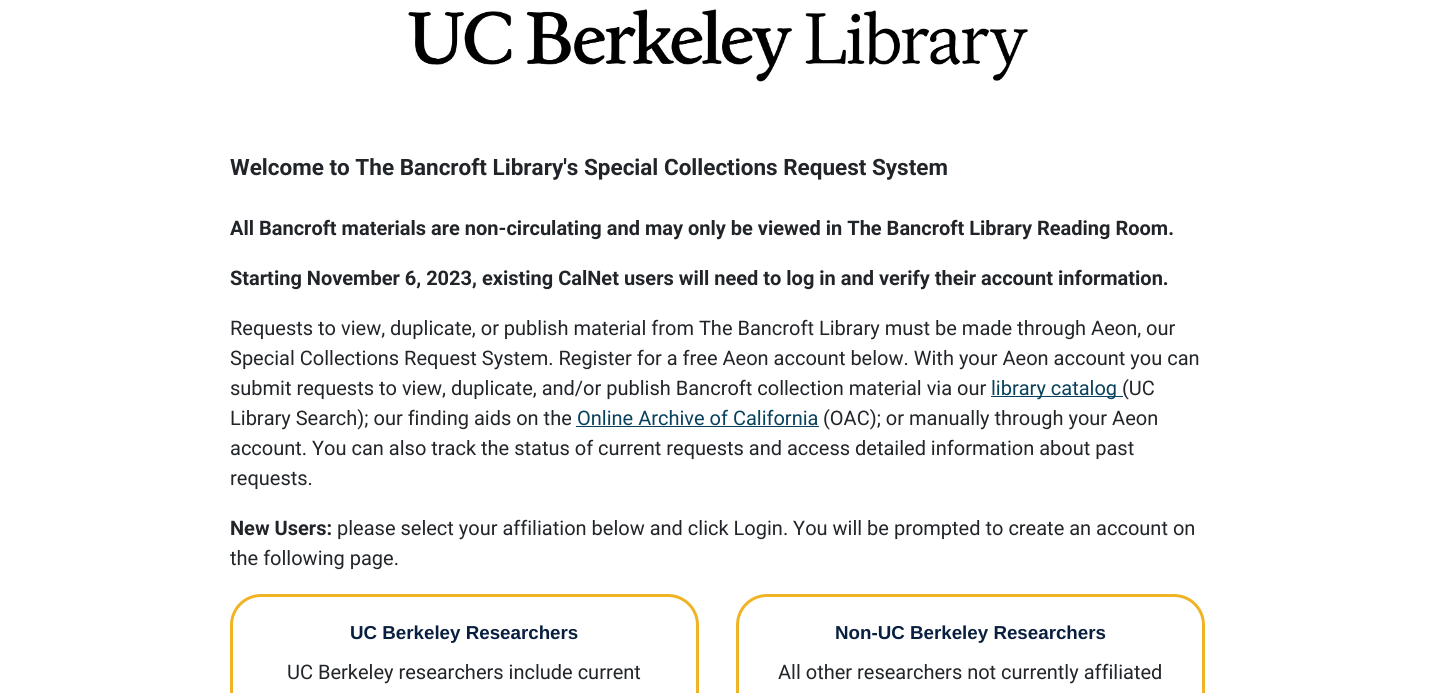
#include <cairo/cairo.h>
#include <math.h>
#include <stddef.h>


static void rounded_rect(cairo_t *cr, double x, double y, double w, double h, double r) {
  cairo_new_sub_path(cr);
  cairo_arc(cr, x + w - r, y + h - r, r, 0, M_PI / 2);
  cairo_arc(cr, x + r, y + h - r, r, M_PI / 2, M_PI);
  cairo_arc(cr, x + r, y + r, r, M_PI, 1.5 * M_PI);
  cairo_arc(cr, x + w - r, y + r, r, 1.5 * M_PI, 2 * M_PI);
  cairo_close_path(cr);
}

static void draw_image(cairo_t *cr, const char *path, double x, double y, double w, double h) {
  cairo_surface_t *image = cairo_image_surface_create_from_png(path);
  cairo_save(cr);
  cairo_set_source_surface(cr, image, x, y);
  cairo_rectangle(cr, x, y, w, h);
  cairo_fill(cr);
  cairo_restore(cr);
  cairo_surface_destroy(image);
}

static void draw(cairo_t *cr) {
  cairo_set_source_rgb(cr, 1, 1, 1);
  cairo_paint(cr);
  draw_image(cr, "images/1.png", 408, 9, 620, 73);
  cairo_set_source_rgb(cr, 8 / 255.0, 65 / 255.0, 92 / 255.0);
  cairo_rectangle(cr, 991, 396, 132, 1);
  cairo_fill(cr);
  cairo_rectangle(cr, 576, 426, 243, 1);
  cairo_fill(cr);
  rounded_rect(cr, 231.5, 595.5, 466, 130, 29.5);
  cairo_set_source_rgb(cr, 240 / 255.0, 179 / 255.0, 36 / 255.0);
  cairo_set_line_width(cr, 3);
  cairo_stroke(cr);
  rounded_rect(cr, 737.5, 595.5, 466, 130, 29.5);
  cairo_stroke(cr);
  cairo_select_font_face(cr, "Roboto", CAIRO_FONT_SLANT_NORMAL, CAIRO_FONT_WEIGHT_BOLD);
  cairo_set_font_size(cr, 22.5);
  cairo_set_source_rgb(cr, 33 / 255.0, 37 / 255.0, 41 / 255.0);
  cairo_move_to(cr, 230, 175);
  cairo_show_text(cr, "Welcome to The Bancroft Library's Special Collections Request System");
  cairo_set_font_size(cr, 20);
  cairo_move_to(cr, 230, 235);
  cairo_show_text(cr, "All Bancroft materials are non-circulating and may only be viewed in The Bancroft Library Reading Room.");
  cairo_move_to(cr, 230, 285);
  cairo_show_text(cr, "Starting November 6, 2023, existing CalNet users will need to log in and verify their account information.");
  cairo_select_font_face(cr, "Roboto", CAIRO_FONT_SLANT_NORMAL, CAIRO_FONT_WEIGHT_NORMAL);
  cairo_move_to(cr, 230, 335);
  cairo_show_text(cr, "Requests to view, duplicate, or publish material from The Bancroft Library must be made through Aeon, our");
  cairo_move_to(cr, 230, 365);
  cairo_show_text(cr, "Special Collections Request System. Register for a free Aeon account below. With your Aeon account you can");
  cairo_move_to(cr, 230, 395);
  cairo_show_text(cr, "submit requests to view, duplicate, and/or publish Bancroft collection material via our");
  cairo_set_source_rgb(cr, 8 / 255.0, 65 / 255.0, 92 / 255.0);
  cairo_move_to(cr, 991, 395);
  cairo_show_text(cr, "library catalog");
  cairo_set_source_rgb(cr, 33 / 255.0, 37 / 255.0, 41 / 255.0);
  cairo_move_to(cr, 1122, 395);
  cairo_show_text(cr, "(UC");
  cairo_move_to(cr, 230, 425);
  cairo_show_text(cr, "Library Search); our finding aids on the");
  cairo_set_source_rgb(cr, 8 / 255.0, 65 / 255.0, 92 / 255.0);
  cairo_move_to(cr, 577, 425);
  cairo_show_text(cr, "Online Archive of California");
  cairo_set_source_rgb(cr, 33 / 255.0, 37 / 255.0, 41 / 255.0);
  cairo_move_to(cr, 823, 425);
  cairo_show_text(cr, "(OAC); or manually through your Aeon");
  cairo_move_to(cr, 230, 455);
  cairo_show_text(cr, "account. You can also track the status of current requests and access detailed information about past");
  cairo_move_to(cr, 230, 485);
  cairo_show_text(cr, "requests.");
  cairo_select_font_face(cr, "Roboto", CAIRO_FONT_SLANT_NORMAL, CAIRO_FONT_WEIGHT_BOLD);
  cairo_move_to(cr, 230, 535);
  cairo_show_text(cr, "New Users:");
  cairo_select_font_face(cr, "Roboto", CAIRO_FONT_SLANT_NORMAL, CAIRO_FONT_WEIGHT_NORMAL);
  cairo_move_to(cr, 337, 535);
  cairo_show_text(cr, "please select your affiliation below and click Login. You will be prompted to create an account on");
  cairo_move_to(cr, 230, 565);
  cairo_show_text(cr, "the following page.");
  cairo_select_font_face(cr, "Liberation Sans", CAIRO_FONT_SLANT_NORMAL, CAIRO_FONT_WEIGHT_BOLD);
  cairo_set_font_size(cr, 18.75);
  cairo_set_source_rgb(cr, 8 / 255.0, 31 / 255.0, 63 / 255.0);
  cairo_move_to(cr, 350, 639);
  cairo_show_text(cr, "UC Berkeley Researchers");
  cairo_select_font_face(cr, "Roboto", CAIRO_FONT_SLANT_NORMAL, CAIRO_FONT_WEIGHT_NORMAL);
  cairo_set_font_size(cr, 20);
  cairo_set_source_rgb(cr, 33 / 255.0, 37 / 255.0, 41 / 255.0);
  cairo_move_to(cr, 287, 679);
  cairo_show_text(cr, "UC Berkeley researchers include current");
  cairo_select_font_face(cr, "Liberation Sans", CAIRO_FONT_SLANT_NORMAL, CAIRO_FONT_WEIGHT_BOLD);
  cairo_set_font_size(cr, 18.75);
  cairo_set_source_rgb(cr, 8 / 255.0, 31 / 255.0, 63 / 255.0);
  cairo_move_to(cr, 835, 639);
  cairo_show_text(cr, "Non-UC Berkeley Researchers");
  cairo_select_font_face(cr, "Roboto", CAIRO_FONT_SLANT_NORMAL, CAIRO_FONT_WEIGHT_NORMAL);
  cairo_set_font_size(cr, 20);
  cairo_set_source_rgb(cr, 33 / 255.0, 37 / 255.0, 41 / 255.0);
  cairo_move_to(cr, 778, 679);
  cairo_show_text(cr, "All other researchers not currently affiliated");
}

int main(void) {
  cairo_surface_t *surface = cairo_image_surface_create(CAIRO_FORMAT_RGB24, 1435, 693);
  cairo_t *cr = cairo_create(surface);
  cairo_font_options_t *options = cairo_font_options_create();
  cairo_font_options_set_hint_metrics(options, CAIRO_HINT_METRICS_OFF);
  cairo_font_options_set_hint_style(options, CAIRO_HINT_STYLE_NONE);
  cairo_set_font_options(cr, options);
  cairo_set_miter_limit(cr, 4);
  draw(cr);
  cairo_surface_write_to_png(surface, "out.png");
  cairo_font_options_destroy(options);
  cairo_destroy(cr);
  cairo_surface_destroy(surface);
  return 0;
}
